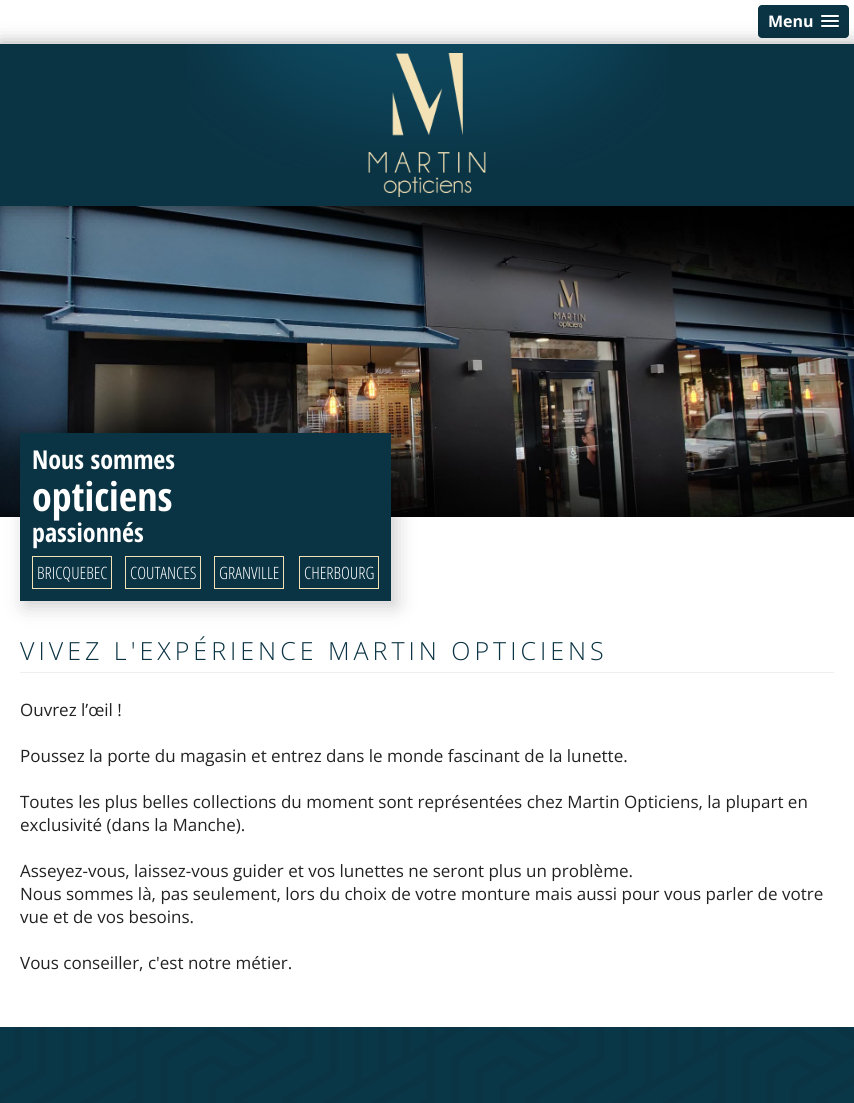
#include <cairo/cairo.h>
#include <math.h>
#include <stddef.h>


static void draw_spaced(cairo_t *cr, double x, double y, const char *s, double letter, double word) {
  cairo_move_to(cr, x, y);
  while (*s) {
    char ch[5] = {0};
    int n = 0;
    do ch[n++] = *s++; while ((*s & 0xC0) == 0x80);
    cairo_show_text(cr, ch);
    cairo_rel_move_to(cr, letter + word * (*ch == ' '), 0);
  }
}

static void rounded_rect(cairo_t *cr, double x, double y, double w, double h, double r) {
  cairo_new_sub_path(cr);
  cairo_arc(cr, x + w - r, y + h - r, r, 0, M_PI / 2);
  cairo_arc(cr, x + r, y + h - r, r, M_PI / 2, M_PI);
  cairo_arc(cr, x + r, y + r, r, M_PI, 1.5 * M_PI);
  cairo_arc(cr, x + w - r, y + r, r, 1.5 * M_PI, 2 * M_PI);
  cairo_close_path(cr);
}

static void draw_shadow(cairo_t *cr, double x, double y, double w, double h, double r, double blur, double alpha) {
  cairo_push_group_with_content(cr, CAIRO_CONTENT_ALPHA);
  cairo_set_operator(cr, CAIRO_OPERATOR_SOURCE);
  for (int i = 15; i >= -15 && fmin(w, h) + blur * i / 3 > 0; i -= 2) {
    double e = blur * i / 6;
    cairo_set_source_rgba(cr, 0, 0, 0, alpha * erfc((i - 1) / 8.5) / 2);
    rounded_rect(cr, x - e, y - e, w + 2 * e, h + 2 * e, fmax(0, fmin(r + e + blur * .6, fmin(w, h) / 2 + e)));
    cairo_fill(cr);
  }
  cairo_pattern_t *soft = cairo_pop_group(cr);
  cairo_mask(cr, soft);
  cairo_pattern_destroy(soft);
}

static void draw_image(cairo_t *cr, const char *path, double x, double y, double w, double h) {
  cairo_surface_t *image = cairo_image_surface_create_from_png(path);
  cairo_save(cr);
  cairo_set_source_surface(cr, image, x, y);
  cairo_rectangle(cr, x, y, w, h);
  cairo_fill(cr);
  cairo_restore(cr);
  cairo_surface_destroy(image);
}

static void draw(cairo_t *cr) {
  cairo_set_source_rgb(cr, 10 / 255.0, 51 / 255.0, 67 / 255.0);
  cairo_paint(cr);
  cairo_set_source_rgb(cr, 1, 1, 1);
  cairo_rectangle(cr, 0, 0, 854, 44);
  cairo_fill(cr);
  cairo_set_source_rgb(cr, 10 / 255.0, 51 / 255.0, 67 / 255.0);
  rounded_rect(cr, 758, 5, 91, 33, 4);
  cairo_fill(cr);
  cairo_set_source_rgb(cr, 8 / 255.0, 38 / 255.0, 50 / 255.0);
  cairo_new_path(cr);
  cairo_move_to(cr, 821, 16.5);
  cairo_curve_to(cr, 820, 18.5, 824.5, 18, 824.5, 18);
  cairo_line_to(cr, 835.5, 18);
  cairo_curve_to(cr, 835.5, 18, 840, 18.5, 839, 16.5);
  cairo_curve_to(cr, 838, 17.5, 831.5, 17, 830, 17);
  cairo_curve_to(cr, 828.5, 17, 822, 17.5, 821, 16.5);
  cairo_close_path(cr);
  cairo_fill(cr);
  cairo_set_source_rgb(cr, 1, 1, 1);
  rounded_rect(cr, 821, 15, 18, 2, 1);
  cairo_fill(cr);
  cairo_set_source_rgb(cr, 8 / 255.0, 38 / 255.0, 50 / 255.0);
  cairo_new_path(cr);
  cairo_move_to(cr, 821, 21.5);
  cairo_curve_to(cr, 820, 23.5, 824.5, 23, 824.5, 23);
  cairo_line_to(cr, 835.5, 23);
  cairo_curve_to(cr, 835.5, 23, 840, 23.5, 839, 21.5);
  cairo_curve_to(cr, 838, 22.5, 831.5, 22, 830, 22);
  cairo_curve_to(cr, 828.5, 22, 822, 22.5, 821, 21.5);
  cairo_close_path(cr);
  cairo_fill(cr);
  cairo_set_source_rgb(cr, 1, 1, 1);
  rounded_rect(cr, 821, 20, 18, 2, 1);
  cairo_fill(cr);
  cairo_set_source_rgb(cr, 8 / 255.0, 38 / 255.0, 50 / 255.0);
  cairo_new_path(cr);
  cairo_move_to(cr, 821, 26.5);
  cairo_curve_to(cr, 820, 28.5, 824.5, 28, 824.5, 28);
  cairo_line_to(cr, 835.5, 28);
  cairo_curve_to(cr, 835.5, 28, 840, 28.5, 839, 26.5);
  cairo_curve_to(cr, 838, 27.5, 831.5, 27, 830, 27);
  cairo_curve_to(cr, 828.5, 27, 822, 27.5, 821, 26.5);
  cairo_close_path(cr);
  cairo_fill(cr);
  cairo_set_source_rgb(cr, 1, 1, 1);
  rounded_rect(cr, 821, 25, 18, 2, 1);
  cairo_fill(cr);
  draw_image(cr, "images/3.png", 0, 206, 854, 311);
  cairo_save(cr);
  cairo_set_fill_rule(cr, CAIRO_FILL_RULE_EVEN_ODD);
  cairo_new_path(cr);
  cairo_move_to(cr, 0, 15);
  cairo_line_to(cr, 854, 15);
  cairo_line_to(cr, 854, 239);
  cairo_line_to(cr, 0, 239);
  cairo_close_path(cr);
  cairo_move_to(cr, 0, 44);
  cairo_line_to(cr, 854, 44);
  cairo_line_to(cr, 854, 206);
  cairo_line_to(cr, 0, 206);
  cairo_close_path(cr);
  cairo_clip(cr);
  cairo_set_source_rgb(cr, 0, 0, 0);
  draw_shadow(cr, 0, 46, 854, 162, 0, 10, 0.42);
  cairo_restore(cr);
  draw_image(cr, "images/1.png", 187, 44, 481, 124);
  draw_image(cr, "images/2.png", 368, 53, 118, 144);
  cairo_set_source_rgb(cr, 0, 0, 0);
  draw_shadow(cr, 0, 513, 854, 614, 0, 8, 0.6);
  cairo_set_source_rgb(cr, 1, 1, 1);
  cairo_rectangle(cr, 0, 517, 854, 510);
  cairo_fill(cr);
  cairo_set_source_rgb(cr, 0, 0, 0);
  draw_shadow(cr, 25, 438, 371, 168, 0, 10, 0.2);
  cairo_set_source_rgb(cr, 10 / 255.0, 51 / 255.0, 67 / 255.0);
  cairo_rectangle(cr, 20, 433, 371, 168);
  cairo_fill(cr);
  cairo_rectangle(cr, 32.5, 556.5, 79, 32);
  cairo_set_source_rgb(cr, 244 / 255.0, 226 / 255.0, 183 / 255.0);
  cairo_set_line_width(cr, 1);
  cairo_stroke(cr);
  cairo_rectangle(cr, 125.5, 556.5, 75, 32);
  cairo_stroke(cr);
  cairo_rectangle(cr, 214.5, 556.5, 69, 32);
  cairo_stroke(cr);
  cairo_rectangle(cr, 299.5, 556.5, 79, 32);
  cairo_stroke(cr);
  cairo_set_source_rgb(cr, 239 / 255.0, 239 / 255.0, 239 / 255.0);
  cairo_rectangle(cr, 20, 672, 814, 1);
  cairo_fill(cr);
  draw_image(cr, "images/4.png", 0, 1027, 854, 76);
  cairo_select_font_face(cr, "Open Sans", CAIRO_FONT_SLANT_NORMAL, CAIRO_FONT_WEIGHT_BOLD);
  cairo_set_font_size(cr, 16);
  cairo_set_source_rgb(cr, 1, 1, 1);
  cairo_move_to(cr, 768, 27);
  cairo_show_text(cr, "Menu");
  cairo_select_font_face(cr, "Open Sans Condensed", CAIRO_FONT_SLANT_NORMAL, CAIRO_FONT_WEIGHT_BOLD);
  cairo_set_font_size(cr, 26);
  cairo_move_to(cr, 32, 469);
  cairo_show_text(cr, "Nous sommes");
  cairo_set_font_size(cr, 40);
  cairo_move_to(cr, 32, 511);
  cairo_show_text(cr, "opticiens");
  cairo_set_font_size(cr, 26);
  cairo_move_to(cr, 32, 542);
  cairo_show_text(cr, "passionnés");
  cairo_select_font_face(cr, "Open Sans Condensed Light", CAIRO_FONT_SLANT_NORMAL, CAIRO_FONT_WEIGHT_NORMAL);
  cairo_set_font_size(cr, 17);
  cairo_move_to(cr, 37, 579);
  cairo_show_text(cr, "BRICQUEBEC");
  cairo_move_to(cr, 130, 579);
  cairo_show_text(cr, "COUTANCES");
  cairo_move_to(cr, 219, 579);
  cairo_show_text(cr, "GRANVILLE");
  cairo_move_to(cr, 304, 579);
  cairo_show_text(cr, "CHERBOURG");
  cairo_select_font_face(cr, "Open Sans Light", CAIRO_FONT_SLANT_NORMAL, CAIRO_FONT_WEIGHT_NORMAL);
  cairo_set_font_size(cr, 25);
  cairo_set_source_rgb(cr, 10 / 255.0, 51 / 255.0, 67 / 255.0);
  draw_spaced(cr, 20, 660, "VIVEZ L'EXPÉRIENCE MARTIN OPTICIENS", 4, 0);
  cairo_select_font_face(cr, "Open Sans", CAIRO_FONT_SLANT_NORMAL, CAIRO_FONT_WEIGHT_NORMAL);
  cairo_set_font_size(cr, 17);
  cairo_set_source_rgb(cr, 34 / 255.0, 34 / 255.0, 34 / 255.0);
  cairo_move_to(cr, 20, 716);
  cairo_show_text(cr, "Ouvrez l’œil !");
  cairo_move_to(cr, 20, 762);
  cairo_show_text(cr, "Poussez la porte du magasin et entrez dans le monde fascinant de la lunette.");
  cairo_move_to(cr, 20, 808);
  cairo_show_text(cr, "Toutes les plus belles collections du moment sont représentées chez Martin Opticiens, la plupart en");
  cairo_move_to(cr, 20, 831);
  cairo_show_text(cr, "exclusivité (dans la Manche).");
  cairo_move_to(cr, 20, 877);
  cairo_show_text(cr, "Asseyez-vous, laissez-vous guider et vos lunettes ne seront plus un problème.");
  cairo_move_to(cr, 20, 900);
  cairo_show_text(cr, "Nous sommes là, pas seulement, lors du choix de votre monture mais aussi pour vous parler de votre");
  cairo_move_to(cr, 20, 923);
  cairo_show_text(cr, "vue et de vos besoins.");
  cairo_move_to(cr, 20, 969);
  cairo_show_text(cr, "Vous conseiller, c'est notre métier.");
}

int main(void) {
  cairo_surface_t *surface = cairo_image_surface_create(CAIRO_FORMAT_RGB24, 854, 1103);
  cairo_t *cr = cairo_create(surface);
  cairo_font_options_t *options = cairo_font_options_create();
  cairo_font_options_set_hint_metrics(options, CAIRO_HINT_METRICS_OFF);
  cairo_font_options_set_hint_style(options, CAIRO_HINT_STYLE_NONE);
  cairo_set_font_options(cr, options);
  cairo_set_miter_limit(cr, 4);
  draw(cr);
  cairo_surface_write_to_png(surface, "out.png");
  cairo_font_options_destroy(options);
  cairo_destroy(cr);
  cairo_surface_destroy(surface);
  return 0;
}
